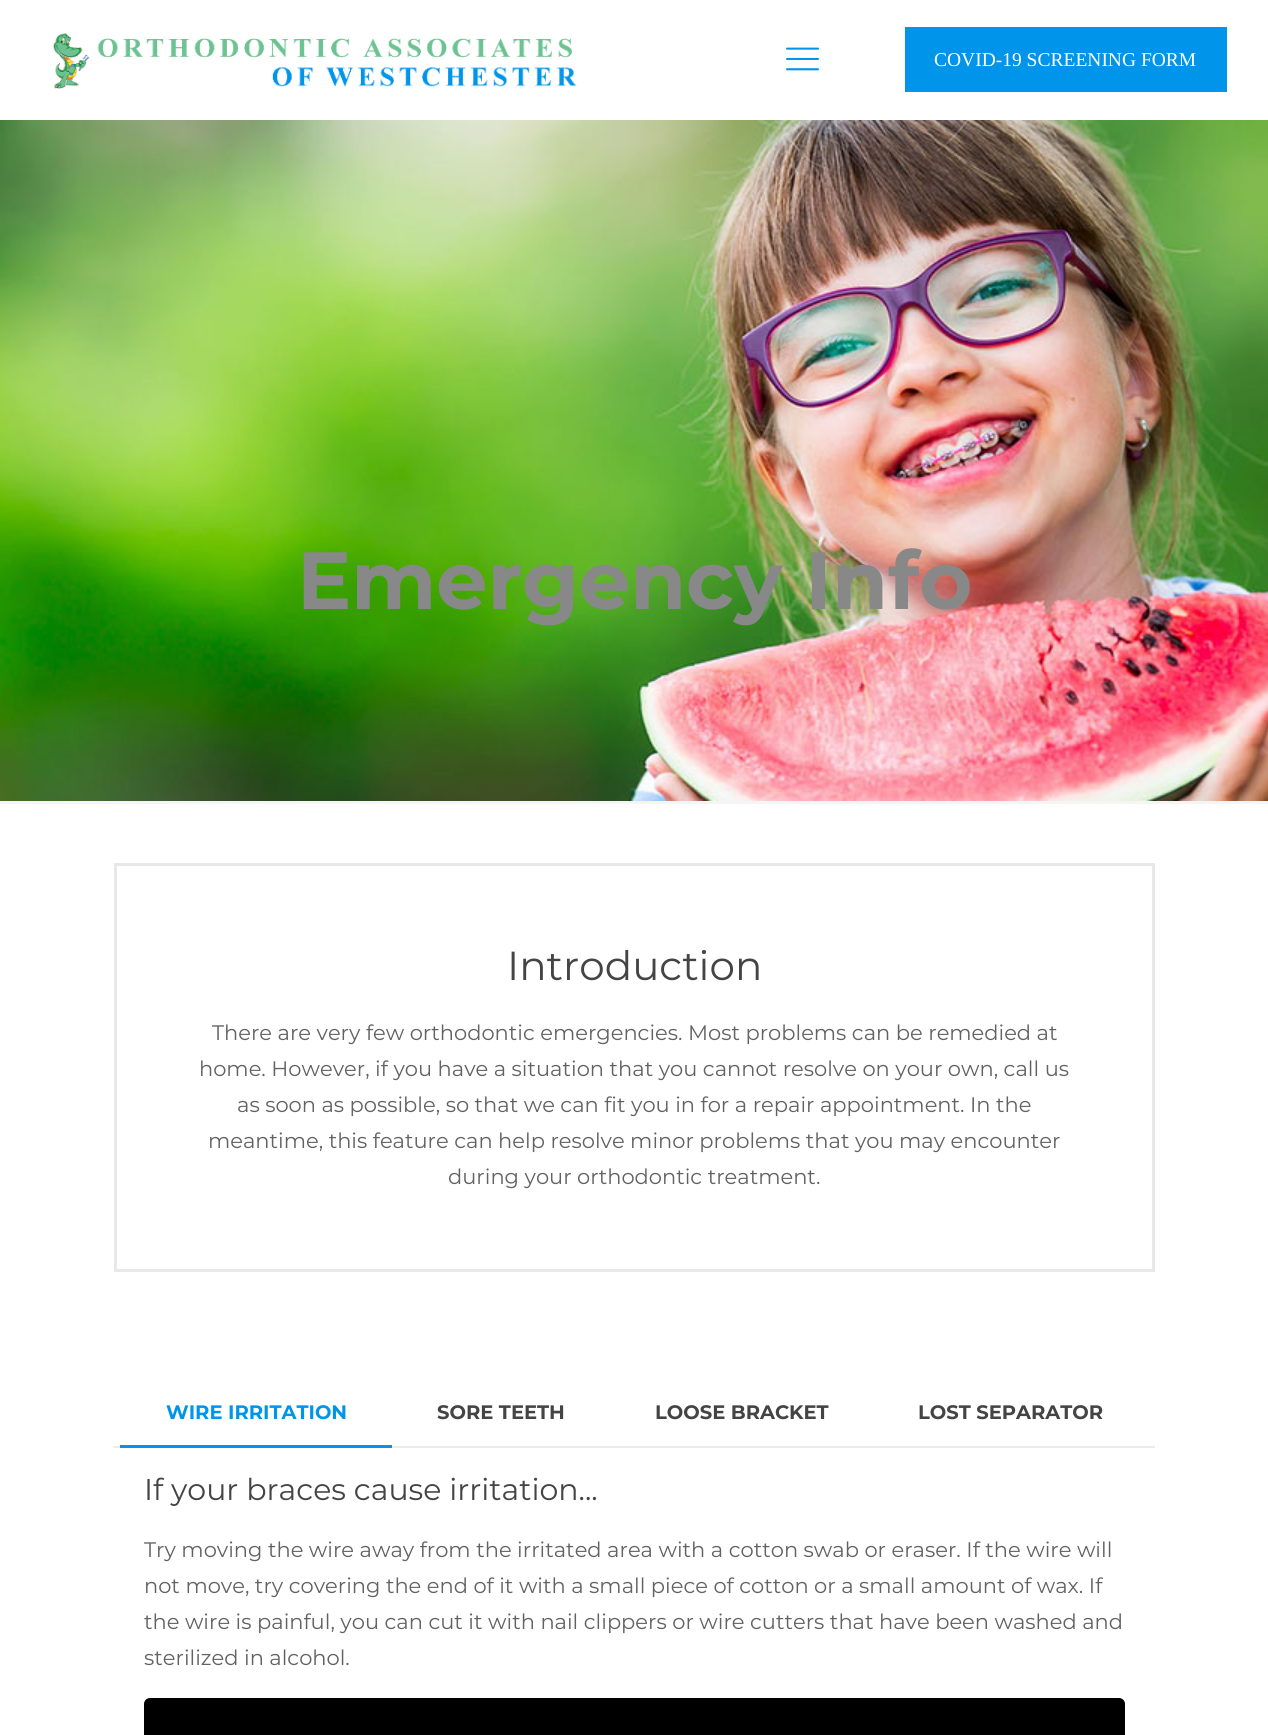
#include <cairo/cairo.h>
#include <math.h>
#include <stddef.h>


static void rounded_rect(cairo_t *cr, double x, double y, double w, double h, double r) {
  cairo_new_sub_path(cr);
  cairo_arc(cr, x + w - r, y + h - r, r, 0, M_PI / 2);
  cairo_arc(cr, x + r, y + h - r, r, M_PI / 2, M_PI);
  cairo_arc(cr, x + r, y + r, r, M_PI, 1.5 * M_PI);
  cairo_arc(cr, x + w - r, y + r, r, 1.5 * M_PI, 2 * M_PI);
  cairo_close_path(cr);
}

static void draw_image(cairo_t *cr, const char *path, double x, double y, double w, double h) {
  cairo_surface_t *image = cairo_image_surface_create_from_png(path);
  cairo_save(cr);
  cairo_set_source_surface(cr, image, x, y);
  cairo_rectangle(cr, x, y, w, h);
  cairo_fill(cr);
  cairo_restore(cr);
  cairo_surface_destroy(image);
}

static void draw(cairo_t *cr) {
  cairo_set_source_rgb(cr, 1, 1, 1);
  cairo_paint(cr);
  draw_image(cr, "images/1.png", 53, 33, 524, 56);
  draw_image(cr, "images/2.png", 786, 47, 33, 24);
  cairo_set_source_rgb(cr, 0, 149 / 255.0, 235 / 255.0);
  cairo_rectangle(cr, 905, 27, 322, 65);
  cairo_fill(cr);
  draw_image(cr, "images/3.png", 0, 120, 1268, 681);
  cairo_set_source_rgb(cr, 245 / 255.0, 245 / 255.0, 245 / 255.0);
  cairo_rectangle(cr, 0, 801, 1268, 3);
  cairo_fill(cr);
  cairo_rectangle(cr, 115.5, 864.5, 1038, 406);
  cairo_set_source_rgb(cr, 232 / 255.0, 232 / 255.0, 232 / 255.0);
  cairo_set_line_width(cr, 3);
  cairo_stroke(cr);
  cairo_set_source_rgb(cr, 235 / 255.0, 235 / 255.0, 235 / 255.0);
  cairo_rectangle(cr, 114, 1446, 1041, 2);
  cairo_fill(cr);
  cairo_set_source_rgb(cr, 0, 149 / 255.0, 235 / 255.0);
  cairo_rectangle(cr, 120, 1445, 272, 3);
  cairo_fill(cr);
  cairo_set_source_rgb(cr, 0, 0, 0);
  rounded_rect(cr, 144, 1698, 981, 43, 6);
  cairo_fill(cr);
  cairo_select_font_face(cr, "Liberation Serif", CAIRO_FONT_SLANT_NORMAL, CAIRO_FONT_WEIGHT_NORMAL);
  cairo_set_font_size(cr, 19.5);
  cairo_set_source_rgb(cr, 1, 1, 1);
  cairo_move_to(cr, 934, 66);
  cairo_show_text(cr, "COVID-19 SCREENING FORM");
  cairo_select_font_face(cr, "Montserrat", CAIRO_FONT_SLANT_NORMAL, CAIRO_FONT_WEIGHT_BOLD);
  cairo_set_font_size(cr, 81);
  cairo_set_source_rgb(cr, 136 / 255.0, 136 / 255.0, 136 / 255.0);
  cairo_move_to(cr, 297, 609);
  cairo_show_text(cr, "Emergency Info");
  cairo_select_font_face(cr, "Montserrat", CAIRO_FONT_SLANT_NORMAL, CAIRO_FONT_WEIGHT_NORMAL);
  cairo_set_font_size(cr, 40.5);
  cairo_set_source_rgb(cr, 68 / 255.0, 68 / 255.0, 68 / 255.0);
  cairo_move_to(cr, 507, 980);
  cairo_show_text(cr, "Introduction");
  cairo_set_font_size(cr, 21);
  cairo_set_source_rgb(cr, 98 / 255.0, 98 / 255.0, 98 / 255.0);
  cairo_move_to(cr, 212, 1040);
  cairo_show_text(cr, "There are very few orthodontic emergencies. Most problems can be remedied at");
  cairo_move_to(cr, 199, 1076);
  cairo_show_text(cr, "home. However, if you have a situation that you cannot resolve on your own, call us");
  cairo_move_to(cr, 237, 1112);
  cairo_show_text(cr, "as soon as possible, so that we can fit you in for a repair appointment. In the");
  cairo_move_to(cr, 208, 1148);
  cairo_show_text(cr, "meantime, this feature can help resolve minor problems that you may encounter");
  cairo_move_to(cr, 448, 1184);
  cairo_show_text(cr, "during your orthodontic treatment.");
  cairo_select_font_face(cr, "Montserrat", CAIRO_FONT_SLANT_NORMAL, CAIRO_FONT_WEIGHT_BOLD);
  cairo_set_font_size(cr, 19.5);
  cairo_set_source_rgb(cr, 0, 149 / 255.0, 235 / 255.0);
  cairo_move_to(cr, 166, 1419);
  cairo_show_text(cr, "WIRE IRRITATION");
  cairo_set_source_rgb(cr, 68 / 255.0, 68 / 255.0, 68 / 255.0);
  cairo_move_to(cr, 437, 1419);
  cairo_show_text(cr, "SORE TEETH");
  cairo_move_to(cr, 655, 1419);
  cairo_show_text(cr, "LOOSE BRACKET");
  cairo_move_to(cr, 918, 1419);
  cairo_show_text(cr, "LOST SEPARATOR");
  cairo_select_font_face(cr, "Montserrat", CAIRO_FONT_SLANT_NORMAL, CAIRO_FONT_WEIGHT_NORMAL);
  cairo_set_font_size(cr, 30);
  cairo_move_to(cr, 144, 1500);
  cairo_show_text(cr, "If your braces cause irritation...");
  cairo_set_font_size(cr, 21);
  cairo_set_source_rgb(cr, 98 / 255.0, 98 / 255.0, 98 / 255.0);
  cairo_move_to(cr, 144, 1557);
  cairo_show_text(cr, "Try moving the wire away from the irritated area with a cotton swab or eraser. If the wire will");
  cairo_move_to(cr, 144, 1593);
  cairo_show_text(cr, "not move, try covering the end of it with a small piece of cotton or a small amount of wax. If");
  cairo_move_to(cr, 144, 1629);
  cairo_show_text(cr, "the wire is painful, you can cut it with nail clippers or wire cutters that have been washed and");
  cairo_move_to(cr, 144, 1665);
  cairo_show_text(cr, "sterilized in alcohol.");
}

int main(void) {
  cairo_surface_t *surface = cairo_image_surface_create(CAIRO_FORMAT_RGB24, 1268, 1735);
  cairo_t *cr = cairo_create(surface);
  cairo_font_options_t *options = cairo_font_options_create();
  cairo_font_options_set_hint_metrics(options, CAIRO_HINT_METRICS_OFF);
  cairo_font_options_set_hint_style(options, CAIRO_HINT_STYLE_NONE);
  cairo_set_font_options(cr, options);
  cairo_set_miter_limit(cr, 4);
  draw(cr);
  cairo_surface_write_to_png(surface, "out.png");
  cairo_font_options_destroy(options);
  cairo_destroy(cr);
  cairo_surface_destroy(surface);
  return 0;
}
